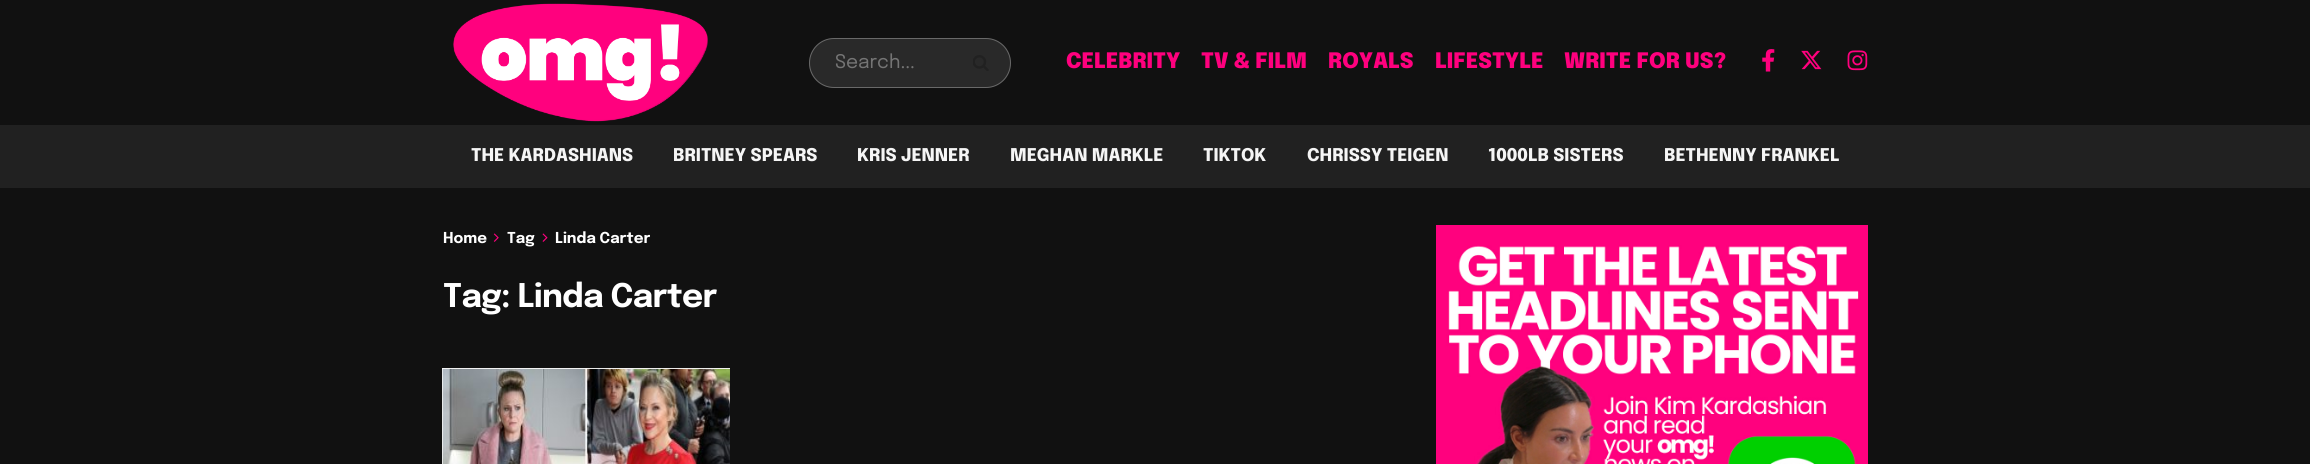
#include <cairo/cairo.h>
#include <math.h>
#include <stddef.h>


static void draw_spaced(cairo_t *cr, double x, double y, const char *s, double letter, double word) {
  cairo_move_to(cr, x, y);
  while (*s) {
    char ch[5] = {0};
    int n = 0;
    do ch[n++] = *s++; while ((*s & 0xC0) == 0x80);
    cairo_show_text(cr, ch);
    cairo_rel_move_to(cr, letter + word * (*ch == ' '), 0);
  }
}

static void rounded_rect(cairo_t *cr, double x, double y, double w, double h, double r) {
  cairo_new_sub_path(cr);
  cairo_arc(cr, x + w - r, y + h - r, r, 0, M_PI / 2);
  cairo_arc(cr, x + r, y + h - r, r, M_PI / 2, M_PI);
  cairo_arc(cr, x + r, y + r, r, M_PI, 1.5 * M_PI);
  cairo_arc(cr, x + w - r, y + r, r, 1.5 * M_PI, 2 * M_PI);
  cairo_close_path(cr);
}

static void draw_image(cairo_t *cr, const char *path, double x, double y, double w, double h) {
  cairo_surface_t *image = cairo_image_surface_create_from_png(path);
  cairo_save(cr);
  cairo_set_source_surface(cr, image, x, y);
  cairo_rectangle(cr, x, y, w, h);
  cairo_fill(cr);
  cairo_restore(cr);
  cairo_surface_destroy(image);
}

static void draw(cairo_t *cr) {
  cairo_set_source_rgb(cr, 17 / 255.0, 17 / 255.0, 17 / 255.0);
  cairo_paint(cr);
  draw_image(cr, "images/1.png", 453, 3, 255, 119);
  cairo_set_source_rgb(cr, 41 / 255.0, 41 / 255.0, 41 / 255.0);
  rounded_rect(cr, 809, 38, 202, 50, 25);
  cairo_fill(cr);
  rounded_rect(cr, 809.5, 38.5, 201, 49, 24.5);
  cairo_set_source_rgba(cr, 1, 1, 1, 0.3);
  cairo_set_line_width(cr, 1);
  cairo_stroke(cr);
  draw_image(cr, "images/2.png", 973, 55, 16, 16);
  draw_image(cr, "images/3.png", 1762, 49, 13, 23);
  draw_image(cr, "images/4.png", 1801, 50, 21, 20);
  draw_image(cr, "images/5.png", 1847, 50, 21, 21);
  cairo_set_source_rgb(cr, 33 / 255.0, 33 / 255.0, 33 / 255.0);
  cairo_rectangle(cr, 0, 125, 2310, 63);
  cairo_fill(cr);
  draw_image(cr, "images/6.png", 493, 233, 6, 9);
  draw_image(cr, "images/7.png", 542, 233, 6, 9);
  cairo_set_source_rgb(cr, 247 / 255.0, 247 / 255.0, 247 / 255.0);
  cairo_rectangle(cr, 442, 368, 288, 96);
  cairo_fill(cr);
  draw_image(cr, "images/8.png", 442, 368, 288, 96);
  draw_image(cr, "images/9.png", 1436, 225, 432, 239);
  cairo_select_font_face(cr, "Epilogue", CAIRO_FONT_SLANT_NORMAL, CAIRO_FONT_WEIGHT_NORMAL);
  cairo_set_font_size(cr, 18.75);
  cairo_set_source_rgb(cr, 117 / 255.0, 117 / 255.0, 117 / 255.0);
  cairo_move_to(cr, 835, 68);
  cairo_show_text(cr, "Search...");
  cairo_select_font_face(cr, "Epilogue Black", CAIRO_FONT_SLANT_NORMAL, CAIRO_FONT_WEIGHT_NORMAL);
  cairo_set_font_size(cr, 21.25);
  cairo_set_source_rgb(cr, 1, 0, 126 / 255.0);
  cairo_move_to(cr, 1066, 68);
  cairo_show_text(cr, "CELEBRITY");
  cairo_move_to(cr, 1201, 68);
  cairo_show_text(cr, "TV & FILM");
  cairo_move_to(cr, 1328, 68);
  cairo_show_text(cr, "ROYALS");
  cairo_move_to(cr, 1435, 68);
  cairo_show_text(cr, "LIFESTYLE");
  cairo_move_to(cr, 1564, 68);
  cairo_show_text(cr, "WRITE FOR US?");
  cairo_select_font_face(cr, "Epilogue ExtraBold", CAIRO_FONT_SLANT_NORMAL, CAIRO_FONT_WEIGHT_NORMAL);
  cairo_set_font_size(cr, 17.5);
  cairo_set_source_rgb(cr, 245 / 255.0, 245 / 255.0, 245 / 255.0);
  cairo_move_to(cr, 471, 161);
  cairo_show_text(cr, "THE KARDASHIANS");
  cairo_move_to(cr, 673, 161);
  cairo_show_text(cr, "BRITNEY SPEARS");
  cairo_move_to(cr, 857, 161);
  cairo_show_text(cr, "KRIS JENNER");
  cairo_move_to(cr, 1010, 161);
  cairo_show_text(cr, "MEGHAN MARKLE");
  cairo_move_to(cr, 1203, 161);
  cairo_show_text(cr, "TIKTOK");
  cairo_move_to(cr, 1307, 161);
  cairo_show_text(cr, "CHRISSY TEIGEN");
  cairo_move_to(cr, 1488, 161);
  cairo_show_text(cr, "1000LB SISTERS");
  cairo_move_to(cr, 1664, 161);
  cairo_show_text(cr, "BETHENNY FRANKEL");
  cairo_select_font_face(cr, "Epilogue", CAIRO_FONT_SLANT_NORMAL, CAIRO_FONT_WEIGHT_BOLD);
  cairo_set_font_size(cr, 15);
  cairo_set_source_rgb(cr, 1, 1, 1);
  cairo_move_to(cr, 443, 243);
  cairo_show_text(cr, "Home");
  cairo_move_to(cr, 507, 243);
  cairo_show_text(cr, "Tag");
  cairo_move_to(cr, 555, 243);
  cairo_show_text(cr, "Linda Carter");
  cairo_set_font_size(cr, 32.5);
  draw_spaced(cr, 443, 307, "Tag: Linda Carter", -0.6, 0);
}

int main(void) {
  cairo_surface_t *surface = cairo_image_surface_create(CAIRO_FORMAT_RGB24, 2310, 464);
  cairo_t *cr = cairo_create(surface);
  cairo_font_options_t *options = cairo_font_options_create();
  cairo_font_options_set_hint_metrics(options, CAIRO_HINT_METRICS_OFF);
  cairo_font_options_set_hint_style(options, CAIRO_HINT_STYLE_NONE);
  cairo_set_font_options(cr, options);
  cairo_set_miter_limit(cr, 4);
  draw(cr);
  cairo_surface_write_to_png(surface, "out.png");
  cairo_font_options_destroy(options);
  cairo_destroy(cr);
  cairo_surface_destroy(surface);
  return 0;
}
